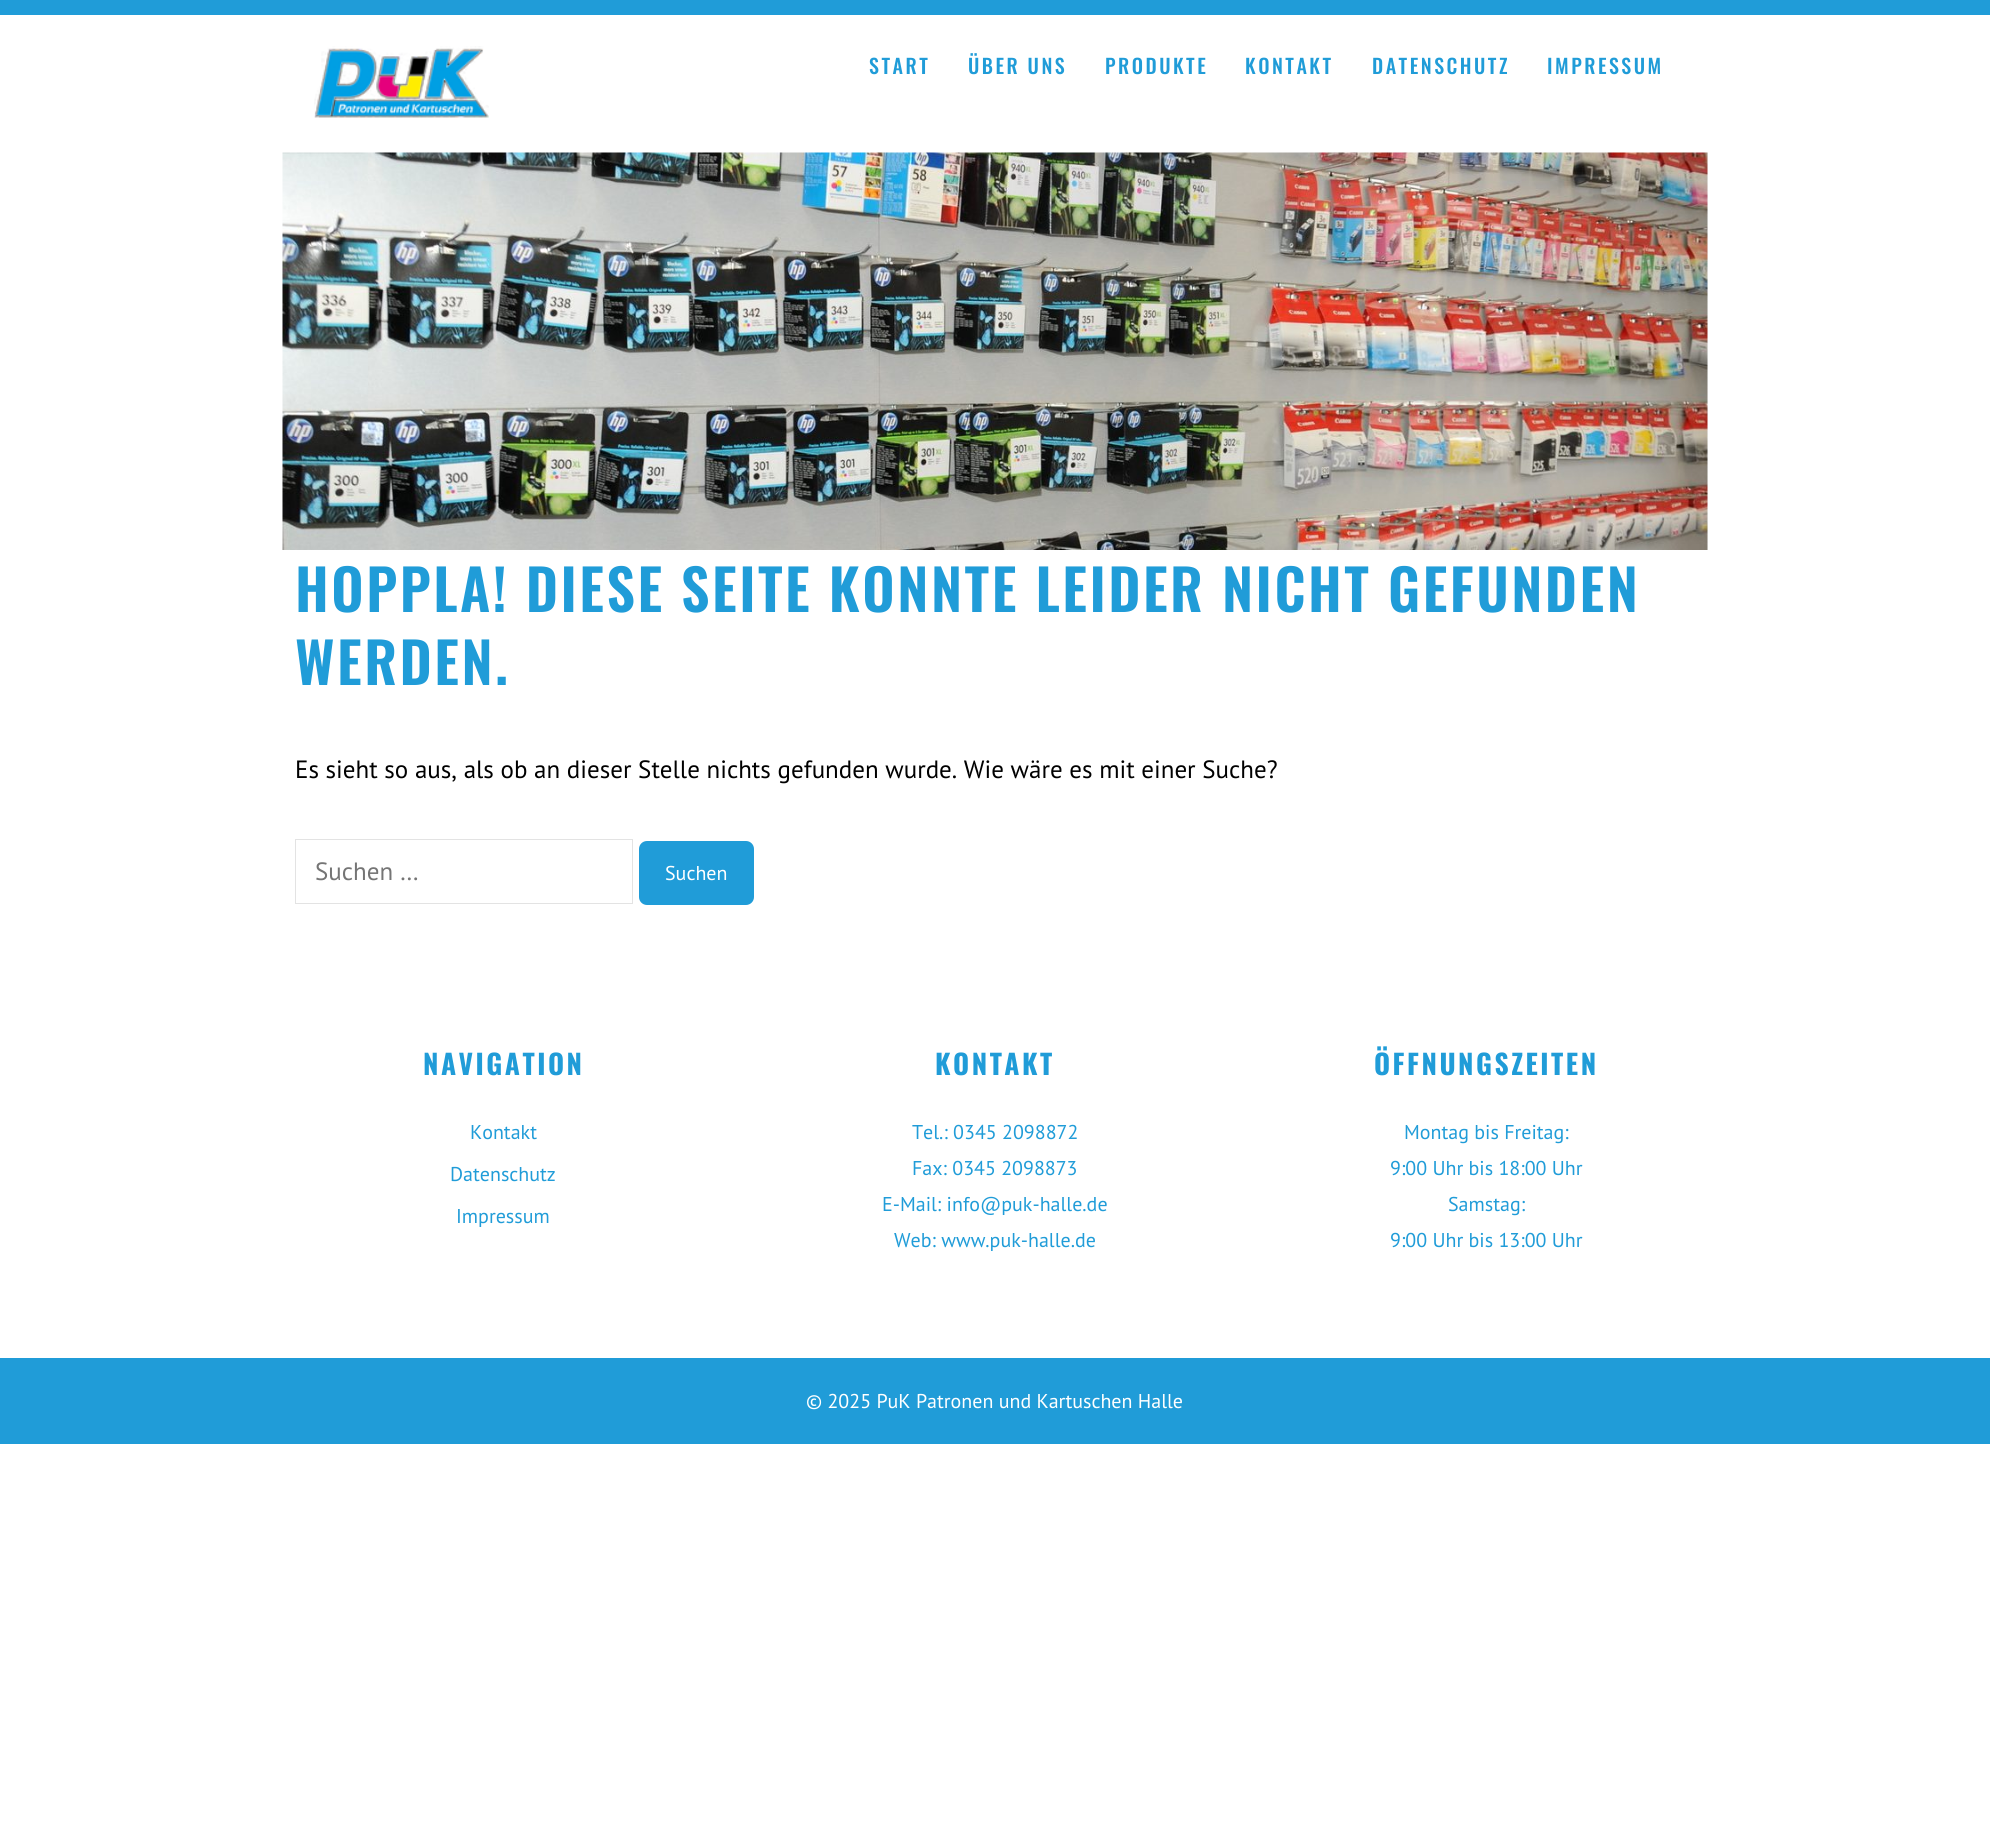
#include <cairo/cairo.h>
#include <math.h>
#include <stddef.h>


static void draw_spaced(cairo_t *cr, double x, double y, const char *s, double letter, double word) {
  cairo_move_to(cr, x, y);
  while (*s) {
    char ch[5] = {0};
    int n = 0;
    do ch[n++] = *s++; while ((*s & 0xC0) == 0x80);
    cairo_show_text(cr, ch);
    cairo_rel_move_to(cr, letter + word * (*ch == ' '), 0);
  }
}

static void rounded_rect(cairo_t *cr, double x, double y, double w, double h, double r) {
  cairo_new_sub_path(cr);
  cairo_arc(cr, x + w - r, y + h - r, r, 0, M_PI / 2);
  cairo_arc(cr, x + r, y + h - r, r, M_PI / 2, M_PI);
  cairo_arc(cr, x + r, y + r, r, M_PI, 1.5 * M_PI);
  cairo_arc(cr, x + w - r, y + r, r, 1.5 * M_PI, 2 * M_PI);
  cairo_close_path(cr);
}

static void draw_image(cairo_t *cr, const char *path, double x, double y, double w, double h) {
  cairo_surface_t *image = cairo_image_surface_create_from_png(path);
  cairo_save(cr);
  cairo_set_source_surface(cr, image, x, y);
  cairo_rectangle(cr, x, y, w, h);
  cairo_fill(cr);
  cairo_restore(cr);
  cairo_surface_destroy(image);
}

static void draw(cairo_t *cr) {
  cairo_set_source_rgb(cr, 1, 1, 1);
  cairo_paint(cr);
  cairo_set_source_rgb(cr, 32 / 255.0, 156 / 255.0, 216 / 255.0);
  cairo_rectangle(cr, 0, 0, 1990, 15);
  cairo_fill(cr);
  draw_image(cr, "images/1.png", 314, 46, 175, 72);
  cairo_set_source_rgb(cr, 247 / 255.0, 249 / 255.0, 251 / 255.0);
  cairo_rectangle(cr, 1707, 153, 1, 397);
  cairo_fill(cr);
  draw_image(cr, "images/2.png", 282, 152, 1426, 398);
  cairo_rectangle(cr, 295.5, 839.5, 337, 64);
  cairo_set_source_rgb(cr, 227 / 255.0, 227 / 255.0, 227 / 255.0);
  cairo_set_line_width(cr, 1);
  cairo_stroke(cr);
  cairo_set_source_rgb(cr, 32 / 255.0, 156 / 255.0, 216 / 255.0);
  rounded_rect(cr, 639, 841, 115, 64, 8);
  cairo_fill(cr);
  cairo_rectangle(cr, 0, 1358, 1990, 86);
  cairo_fill(cr);
  cairo_select_font_face(cr, "Oswald Medium", CAIRO_FONT_SLANT_NORMAL, CAIRO_FONT_WEIGHT_NORMAL);
  cairo_set_font_size(cr, 20);
  draw_spaced(cr, 869, 74, "START", 2.5, 0);
  draw_spaced(cr, 968, 74, "ÜBER UNS", 2.5, 0);
  draw_spaced(cr, 1105, 74, "PRODUKTE", 2.5, 0);
  draw_spaced(cr, 1245, 74, "KONTAKT", 2.5, 0);
  draw_spaced(cr, 1372, 74, "DATENSCHUTZ", 2.5, 0);
  draw_spaced(cr, 1547, 74, "IMPRESSUM", 2.5, 0);
  cairo_select_font_face(cr, "Oswald SemiBold", CAIRO_FONT_SLANT_NORMAL, CAIRO_FONT_WEIGHT_NORMAL);
  cairo_set_font_size(cr, 56.25);
  draw_spaced(cr, 295, 612, "HOPPLA! DIESE SEITE KONNTE LEIDER NICHT GEFUNDEN", 2.5, 0);
  draw_spaced(cr, 295, 685, "WERDEN.", 2.5, 0);
  cairo_select_font_face(cr, "PT Sans", CAIRO_FONT_SLANT_NORMAL, CAIRO_FONT_WEIGHT_NORMAL);
  cairo_set_font_size(cr, 25);
  cairo_set_source_rgb(cr, 0, 0, 0);
  cairo_move_to(cr, 295, 778);
  cairo_show_text(cr, "Es sieht so aus, als ob an dieser Stelle nichts gefunden wurde. Wie wäre es mit einer Suche?");
  cairo_set_source_rgb(cr, 117 / 255.0, 117 / 255.0, 117 / 255.0);
  cairo_move_to(cr, 315, 880);
  cairo_show_text(cr, "Suchen …");
  cairo_set_font_size(cr, 20);
  cairo_set_source_rgb(cr, 1, 1, 1);
  cairo_move_to(cr, 665, 880);
  cairo_show_text(cr, "Suchen");
  cairo_select_font_face(cr, "Oswald", CAIRO_FONT_SLANT_NORMAL, CAIRO_FONT_WEIGHT_BOLD);
  cairo_set_font_size(cr, 27.5);
  cairo_set_source_rgb(cr, 32 / 255.0, 156 / 255.0, 216 / 255.0);
  draw_spaced(cr, 423, 1075, "NAVIGATION", 2.5, 0);
  cairo_select_font_face(cr, "PT Sans", CAIRO_FONT_SLANT_NORMAL, CAIRO_FONT_WEIGHT_NORMAL);
  cairo_set_font_size(cr, 20);
  cairo_move_to(cr, 470, 1139);
  cairo_show_text(cr, "Kontakt");
  cairo_move_to(cr, 450, 1181);
  cairo_show_text(cr, "Datenschutz");
  cairo_move_to(cr, 456, 1223);
  cairo_show_text(cr, "Impressum");
  cairo_select_font_face(cr, "Oswald", CAIRO_FONT_SLANT_NORMAL, CAIRO_FONT_WEIGHT_BOLD);
  cairo_set_font_size(cr, 27.5);
  draw_spaced(cr, 935, 1075, "KONTAKT", 2.5, 0);
  cairo_select_font_face(cr, "PT Sans", CAIRO_FONT_SLANT_NORMAL, CAIRO_FONT_WEIGHT_NORMAL);
  cairo_set_font_size(cr, 20);
  cairo_move_to(cr, 912, 1139);
  cairo_show_text(cr, "Tel.: 0345 2098872");
  cairo_move_to(cr, 912, 1175);
  cairo_show_text(cr, "Fax: 0345 2098873");
  cairo_move_to(cr, 882, 1211);
  cairo_show_text(cr, "E-Mail: info@puk-halle.de");
  cairo_move_to(cr, 894, 1247);
  cairo_show_text(cr, "Web: www.puk-halle.de");
  cairo_select_font_face(cr, "Oswald", CAIRO_FONT_SLANT_NORMAL, CAIRO_FONT_WEIGHT_BOLD);
  cairo_set_font_size(cr, 27.5);
  draw_spaced(cr, 1374, 1075, "ÖFFNUNGSZEITEN", 2.5, 0);
  cairo_select_font_face(cr, "PT Sans", CAIRO_FONT_SLANT_NORMAL, CAIRO_FONT_WEIGHT_NORMAL);
  cairo_set_font_size(cr, 20);
  cairo_move_to(cr, 1404, 1139);
  cairo_show_text(cr, "Montag bis Freitag:");
  cairo_move_to(cr, 1390, 1175);
  cairo_show_text(cr, "9:00 Uhr bis 18:00 Uhr");
  cairo_move_to(cr, 1448, 1211);
  cairo_show_text(cr, "Samstag:");
  cairo_move_to(cr, 1390, 1247);
  cairo_show_text(cr, "9:00 Uhr bis 13:00 Uhr");
  cairo_set_source_rgb(cr, 1, 1, 1);
  cairo_move_to(cr, 806, 1408);
  cairo_show_text(cr, "© 2025 PuK Patronen und Kartuschen Halle");
}

int main(void) {
  cairo_surface_t *surface = cairo_image_surface_create(CAIRO_FORMAT_RGB24, 1990, 1836);
  cairo_t *cr = cairo_create(surface);
  cairo_font_options_t *options = cairo_font_options_create();
  cairo_font_options_set_hint_metrics(options, CAIRO_HINT_METRICS_OFF);
  cairo_font_options_set_hint_style(options, CAIRO_HINT_STYLE_NONE);
  cairo_set_font_options(cr, options);
  cairo_set_miter_limit(cr, 4);
  draw(cr);
  cairo_surface_write_to_png(surface, "out.png");
  cairo_font_options_destroy(options);
  cairo_destroy(cr);
  cairo_surface_destroy(surface);
  return 0;
}
